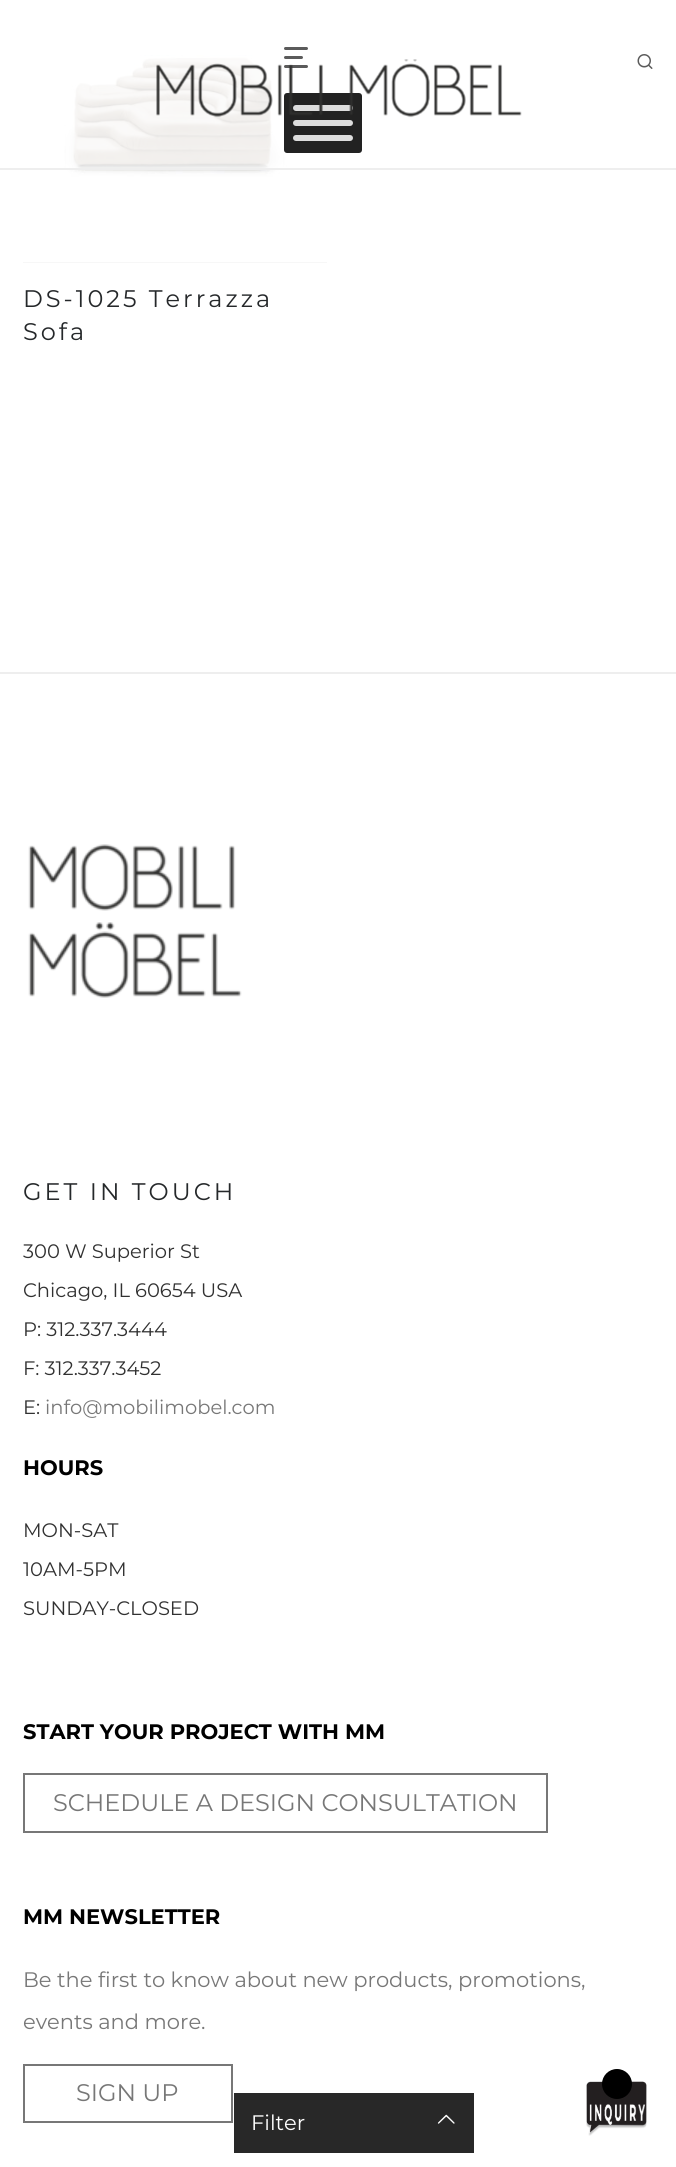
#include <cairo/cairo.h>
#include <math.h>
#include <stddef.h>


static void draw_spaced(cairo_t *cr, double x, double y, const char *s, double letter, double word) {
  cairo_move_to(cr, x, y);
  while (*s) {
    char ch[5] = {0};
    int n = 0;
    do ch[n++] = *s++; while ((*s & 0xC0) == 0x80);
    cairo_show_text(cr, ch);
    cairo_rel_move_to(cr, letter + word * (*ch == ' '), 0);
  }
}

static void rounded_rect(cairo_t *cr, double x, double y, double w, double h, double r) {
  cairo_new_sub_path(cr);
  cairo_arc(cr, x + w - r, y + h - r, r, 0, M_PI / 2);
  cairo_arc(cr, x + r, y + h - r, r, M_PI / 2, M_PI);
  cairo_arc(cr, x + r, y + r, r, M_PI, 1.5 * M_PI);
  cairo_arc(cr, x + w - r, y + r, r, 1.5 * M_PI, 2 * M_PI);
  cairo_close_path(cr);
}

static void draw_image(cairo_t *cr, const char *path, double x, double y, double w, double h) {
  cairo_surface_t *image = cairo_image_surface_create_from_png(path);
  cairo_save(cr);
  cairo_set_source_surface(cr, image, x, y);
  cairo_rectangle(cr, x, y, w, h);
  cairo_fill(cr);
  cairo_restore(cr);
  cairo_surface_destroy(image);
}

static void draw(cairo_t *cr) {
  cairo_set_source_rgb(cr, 1, 1, 1);
  cairo_paint(cr);
  draw_image(cr, "images/3.png", 23, 0, 304, 262);
  cairo_set_source_rgba(cr, 1, 1, 1, 0.87);
  cairo_rectangle(cr, 66, 56, 217, 112);
  cairo_fill(cr);
  cairo_set_source_rgb(cr, 238 / 255.0, 238 / 255.0, 238 / 255.0);
  cairo_rectangle(cr, 0, 168, 676, 2);
  cairo_fill(cr);
  cairo_set_source_rgb(cr, 91 / 255.0, 91 / 255.0, 91 / 255.0);
  rounded_rect(cr, 284, 47, 24, 3, 1.5);
  cairo_fill(cr);
  rounded_rect(cr, 284, 56, 19, 3, 1.5);
  cairo_fill(cr);
  rounded_rect(cr, 284, 65, 24, 3, 1.5);
  cairo_fill(cr);
  cairo_set_source_rgb(cr, 34 / 255.0, 34 / 255.0, 34 / 255.0);
  rounded_rect(cr, 284, 93, 78, 60, 3);
  cairo_fill(cr);
  cairo_set_source_rgb(cr, 221 / 255.0, 221 / 255.0, 221 / 255.0);
  rounded_rect(cr, 293, 105, 60, 6, 3);
  cairo_fill(cr);
  rounded_rect(cr, 293, 120, 60, 6, 3);
  cairo_fill(cr);
  rounded_rect(cr, 293, 135, 60, 6, 3);
  cairo_fill(cr);
  draw_image(cr, "images/1.png", 637, 54, 16, 15);
  draw_image(cr, "images/2.png", 156, 59, 366, 59);
  cairo_set_source_rgb(cr, 247 / 255.0, 247 / 255.0, 247 / 255.0);
  cairo_rectangle(cr, 23, 262, 304, 1);
  cairo_fill(cr);
  cairo_set_source_rgb(cr, 40 / 255.0, 40 / 255.0, 40 / 255.0);
  cairo_rectangle(cr, 234, 2093, 240, 60);
  cairo_fill(cr);
  draw_image(cr, "images/4.png", 437, 2114, 18, 10);
  cairo_set_source_rgb(cr, 238 / 255.0, 238 / 255.0, 238 / 255.0);
  cairo_rectangle(cr, 0, 672, 676, 2);
  cairo_fill(cr);
  draw_image(cr, "images/5.png", 28, 844, 214, 154);
  cairo_rectangle(cr, 24, 1774, 523, 58);
  cairo_set_source_rgb(cr, 119 / 255.0, 119 / 255.0, 119 / 255.0);
  cairo_stroke(cr);
  cairo_rectangle(cr, 24, 2065, 208, 57);
  cairo_stroke(cr);
  draw_image(cr, "images/6.png", 586, 2081, 61, 55);
  cairo_set_source_rgb(cr, 0, 0, 0);
  cairo_arc(cr, 617, 2084, 15, 0, 2 * M_PI);
  cairo_fill(cr);
  cairo_select_font_face(cr, "Montserrat", CAIRO_FONT_SLANT_NORMAL, CAIRO_FONT_WEIGHT_NORMAL);
  cairo_set_font_size(cr, 24);
  cairo_set_source_rgb(cr, 37 / 255.0, 40 / 255.0, 42 / 255.0);
  draw_spaced(cr, 23, 307, "DS-1025 Terrazza", 3, 0);
  draw_spaced(cr, 23, 340, "Sofa", 3, 0);
  cairo_set_font_size(cr, 21);
  cairo_set_source_rgb(cr, 1, 1, 1);
  cairo_move_to(cr, 251, 2130);
  cairo_show_text(cr, "Filter");
  cairo_set_font_size(cr, 24);
  cairo_set_source_rgb(cr, 37 / 255.0, 40 / 255.0, 42 / 255.0);
  draw_spaced(cr, 23, 1200, "GET IN TOUCH", 3, 0);
  cairo_set_font_size(cr, 19.5);
  cairo_set_source_rgb(cr, 49 / 255.0, 49 / 255.0, 49 / 255.0);
  cairo_move_to(cr, 23, 1258);
  cairo_show_text(cr, "300 W Superior St");
  cairo_move_to(cr, 23, 1297);
  cairo_show_text(cr, "Chicago, IL 60654 USA");
  cairo_move_to(cr, 23, 1336);
  cairo_show_text(cr, "P: 312.337.3444");
  cairo_move_to(cr, 23, 1375);
  cairo_show_text(cr, "F: 312.337.3452");
  cairo_move_to(cr, 23, 1414);
  cairo_show_text(cr, "E:");
  cairo_set_source_rgb(cr, 119 / 255.0, 119 / 255.0, 119 / 255.0);
  cairo_move_to(cr, 45, 1414);
  cairo_show_text(cr, "info@mobilimobel.com");
  cairo_select_font_face(cr, "Montserrat", CAIRO_FONT_SLANT_NORMAL, CAIRO_FONT_WEIGHT_BOLD);
  cairo_set_font_size(cr, 21);
  cairo_set_source_rgb(cr, 0, 0, 0);
  cairo_move_to(cr, 23, 1475);
  cairo_show_text(cr, "HOURS");
  cairo_select_font_face(cr, "Montserrat", CAIRO_FONT_SLANT_NORMAL, CAIRO_FONT_WEIGHT_NORMAL);
  cairo_set_font_size(cr, 19.5);
  cairo_set_source_rgb(cr, 49 / 255.0, 49 / 255.0, 49 / 255.0);
  cairo_move_to(cr, 23, 1537);
  cairo_show_text(cr, "MON-SAT");
  cairo_move_to(cr, 23, 1576);
  cairo_show_text(cr, "10AM-5PM");
  cairo_move_to(cr, 23, 1615);
  cairo_show_text(cr, "SUNDAY-CLOSED");
  cairo_select_font_face(cr, "Montserrat", CAIRO_FONT_SLANT_NORMAL, CAIRO_FONT_WEIGHT_BOLD);
  cairo_set_font_size(cr, 21);
  cairo_set_source_rgb(cr, 0, 0, 0);
  cairo_move_to(cr, 23, 1739);
  cairo_show_text(cr, "START YOUR PROJECT WITH MM");
  cairo_select_font_face(cr, "Montserrat", CAIRO_FONT_SLANT_NORMAL, CAIRO_FONT_WEIGHT_NORMAL);
  cairo_set_font_size(cr, 24);
  cairo_set_source_rgb(cr, 119 / 255.0, 119 / 255.0, 119 / 255.0);
  cairo_move_to(cr, 53, 1811);
  cairo_show_text(cr, "SCHEDULE A DESIGN CONSULTATION");
  cairo_select_font_face(cr, "Montserrat", CAIRO_FONT_SLANT_NORMAL, CAIRO_FONT_WEIGHT_BOLD);
  cairo_set_font_size(cr, 21);
  cairo_set_source_rgb(cr, 0, 0, 0);
  cairo_move_to(cr, 23, 1924);
  cairo_show_text(cr, "MM NEWSLETTER");
  cairo_select_font_face(cr, "Montserrat", CAIRO_FONT_SLANT_NORMAL, CAIRO_FONT_WEIGHT_NORMAL);
  cairo_set_source_rgb(cr, 119 / 255.0, 119 / 255.0, 119 / 255.0);
  cairo_move_to(cr, 23, 1987);
  cairo_show_text(cr, "Be the first to know about new products, promotions,");
  cairo_move_to(cr, 23, 2029);
  cairo_show_text(cr, "events and more.");
  cairo_set_font_size(cr, 24);
  cairo_move_to(cr, 76, 2101);
  cairo_show_text(cr, "SIGN UP");
}

int main(void) {
  cairo_surface_t *surface = cairo_image_surface_create(CAIRO_FORMAT_RGB24, 676, 2167);
  cairo_t *cr = cairo_create(surface);
  cairo_font_options_t *options = cairo_font_options_create();
  cairo_font_options_set_hint_metrics(options, CAIRO_HINT_METRICS_OFF);
  cairo_font_options_set_hint_style(options, CAIRO_HINT_STYLE_NONE);
  cairo_set_font_options(cr, options);
  cairo_set_miter_limit(cr, 4);
  draw(cr);
  cairo_surface_write_to_png(surface, "out.png");
  cairo_font_options_destroy(options);
  cairo_destroy(cr);
  cairo_surface_destroy(surface);
  return 0;
}
